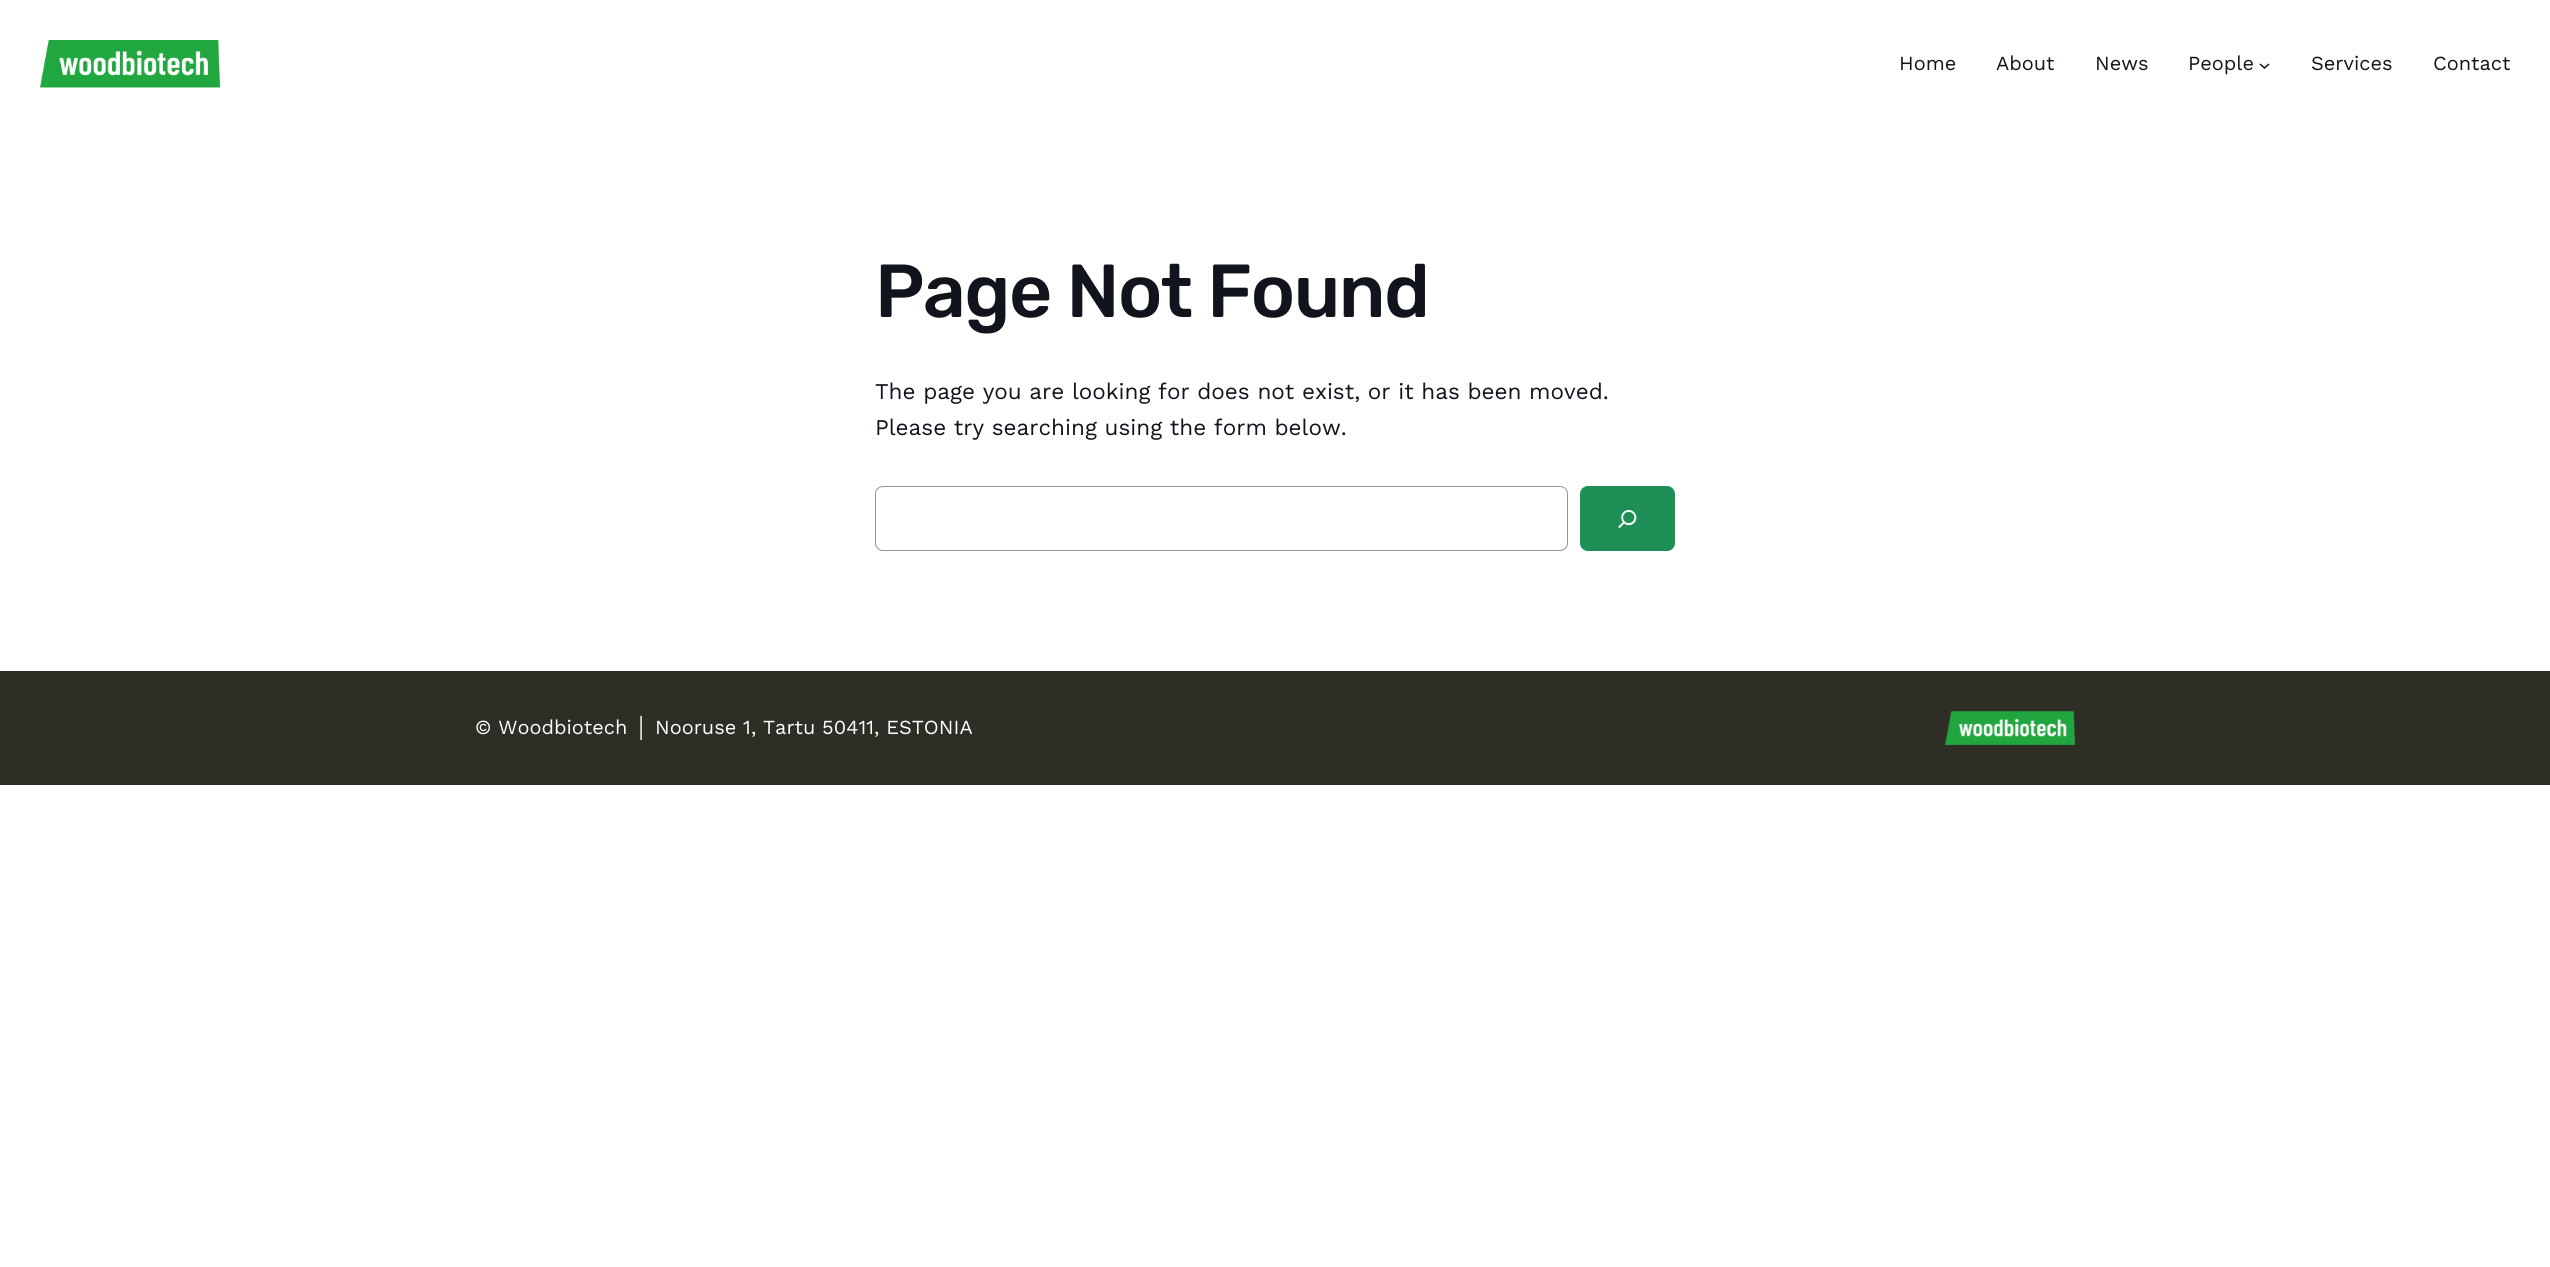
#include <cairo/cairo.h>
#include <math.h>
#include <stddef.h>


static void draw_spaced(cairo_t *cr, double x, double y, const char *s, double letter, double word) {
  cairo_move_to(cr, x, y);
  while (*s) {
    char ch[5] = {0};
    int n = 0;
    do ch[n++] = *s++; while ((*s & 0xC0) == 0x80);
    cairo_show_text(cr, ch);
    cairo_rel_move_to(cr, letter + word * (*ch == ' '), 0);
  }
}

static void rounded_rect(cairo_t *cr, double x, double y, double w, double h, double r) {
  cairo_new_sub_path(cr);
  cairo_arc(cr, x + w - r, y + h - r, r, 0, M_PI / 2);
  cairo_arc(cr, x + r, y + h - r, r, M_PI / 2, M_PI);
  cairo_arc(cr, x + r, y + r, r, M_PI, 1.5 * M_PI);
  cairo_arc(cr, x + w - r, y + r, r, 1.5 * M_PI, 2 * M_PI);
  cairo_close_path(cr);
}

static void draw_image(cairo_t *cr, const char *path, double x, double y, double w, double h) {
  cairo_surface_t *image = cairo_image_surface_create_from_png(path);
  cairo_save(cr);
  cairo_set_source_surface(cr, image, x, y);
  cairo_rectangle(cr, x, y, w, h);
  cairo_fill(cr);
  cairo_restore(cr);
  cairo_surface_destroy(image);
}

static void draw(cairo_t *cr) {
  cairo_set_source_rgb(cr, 1, 1, 1);
  cairo_paint(cr);
  draw_image(cr, "images/1.png", 40, 40, 180, 48);
  cairo_new_path(cr);
  cairo_move_to(cr, 2260, 64);
  cairo_line_to(cr, 2264.5, 68);
  cairo_line_to(cr, 2269, 64);
  cairo_set_source_rgb(cr, 18 / 255.0, 20 / 255.0, 29 / 255.0);
  cairo_set_line_width(cr, 1.5);
  cairo_stroke(cr);
  rounded_rect(cr, 875.5, 486.5, 692, 64, 7.5);
  cairo_set_source_rgb(cr, 148 / 255.0, 148 / 255.0, 148 / 255.0);
  cairo_set_line_width(cr, 1);
  cairo_stroke(cr);
  cairo_set_source_rgb(cr, 30 / 255.0, 144 / 255.0, 87 / 255.0);
  rounded_rect(cr, 1580, 486, 95, 65, 8);
  cairo_fill(cr);
  draw_image(cr, "images/2.png", 1618, 510, 19, 19);
  cairo_set_source_rgb(cr, 46 / 255.0, 46 / 255.0, 39 / 255.0);
  cairo_rectangle(cr, 0, 671, 2550, 114);
  cairo_fill(cr);
  draw_image(cr, "images/3.png", 1945, 711, 130, 34);
  cairo_select_font_face(cr, "Work Sans", CAIRO_FONT_SLANT_NORMAL, CAIRO_FONT_WEIGHT_NORMAL);
  cairo_set_font_size(cr, 20);
  cairo_set_source_rgb(cr, 18 / 255.0, 20 / 255.0, 29 / 255.0);
  cairo_move_to(cr, 1899, 70);
  cairo_show_text(cr, "Home");
  cairo_move_to(cr, 1996, 70);
  cairo_show_text(cr, "About");
  cairo_move_to(cr, 2095, 70);
  cairo_show_text(cr, "News");
  cairo_move_to(cr, 2188, 70);
  cairo_show_text(cr, "People");
  cairo_move_to(cr, 2311, 70);
  cairo_show_text(cr, "Services");
  cairo_move_to(cr, 2433, 70);
  cairo_show_text(cr, "Contact");
  cairo_select_font_face(cr, "Rubik Medium", CAIRO_FONT_SLANT_NORMAL, CAIRO_FONT_WEIGHT_NORMAL);
  cairo_set_font_size(cr, 75);
  draw_spaced(cr, 875, 317, "Page Not Found", -1.5, 0);
  cairo_select_font_face(cr, "Work Sans", CAIRO_FONT_SLANT_NORMAL, CAIRO_FONT_WEIGHT_NORMAL);
  cairo_set_font_size(cr, 22.5);
  cairo_move_to(cr, 875, 399);
  cairo_show_text(cr, "The page you are looking for does not exist, or it has been moved.");
  cairo_move_to(cr, 875, 435);
  cairo_show_text(cr, "Please try searching using the form below.");
  cairo_set_font_size(cr, 20);
  cairo_set_source_rgb(cr, 1, 1, 1);
  cairo_move_to(cr, 475, 734);
  cairo_show_text(cr, "© Woodbiotech");
  cairo_select_font_face(cr, "Liberation Serif", CAIRO_FONT_SLANT_NORMAL, CAIRO_FONT_WEIGHT_NORMAL);
  cairo_move_to(cr, 634, 734);
  cairo_show_text(cr, "│");
  cairo_select_font_face(cr, "Work Sans", CAIRO_FONT_SLANT_NORMAL, CAIRO_FONT_WEIGHT_NORMAL);
  cairo_move_to(cr, 655, 734);
  cairo_show_text(cr, "Nooruse 1, Tartu 50411, ESTONIA");
}

int main(void) {
  cairo_surface_t *surface = cairo_image_surface_create(CAIRO_FORMAT_RGB24, 2550, 1267);
  cairo_t *cr = cairo_create(surface);
  cairo_font_options_t *options = cairo_font_options_create();
  cairo_font_options_set_hint_metrics(options, CAIRO_HINT_METRICS_OFF);
  cairo_font_options_set_hint_style(options, CAIRO_HINT_STYLE_NONE);
  cairo_set_font_options(cr, options);
  cairo_set_miter_limit(cr, 4);
  draw(cr);
  cairo_surface_write_to_png(surface, "out.png");
  cairo_font_options_destroy(options);
  cairo_destroy(cr);
  cairo_surface_destroy(surface);
  return 0;
}
